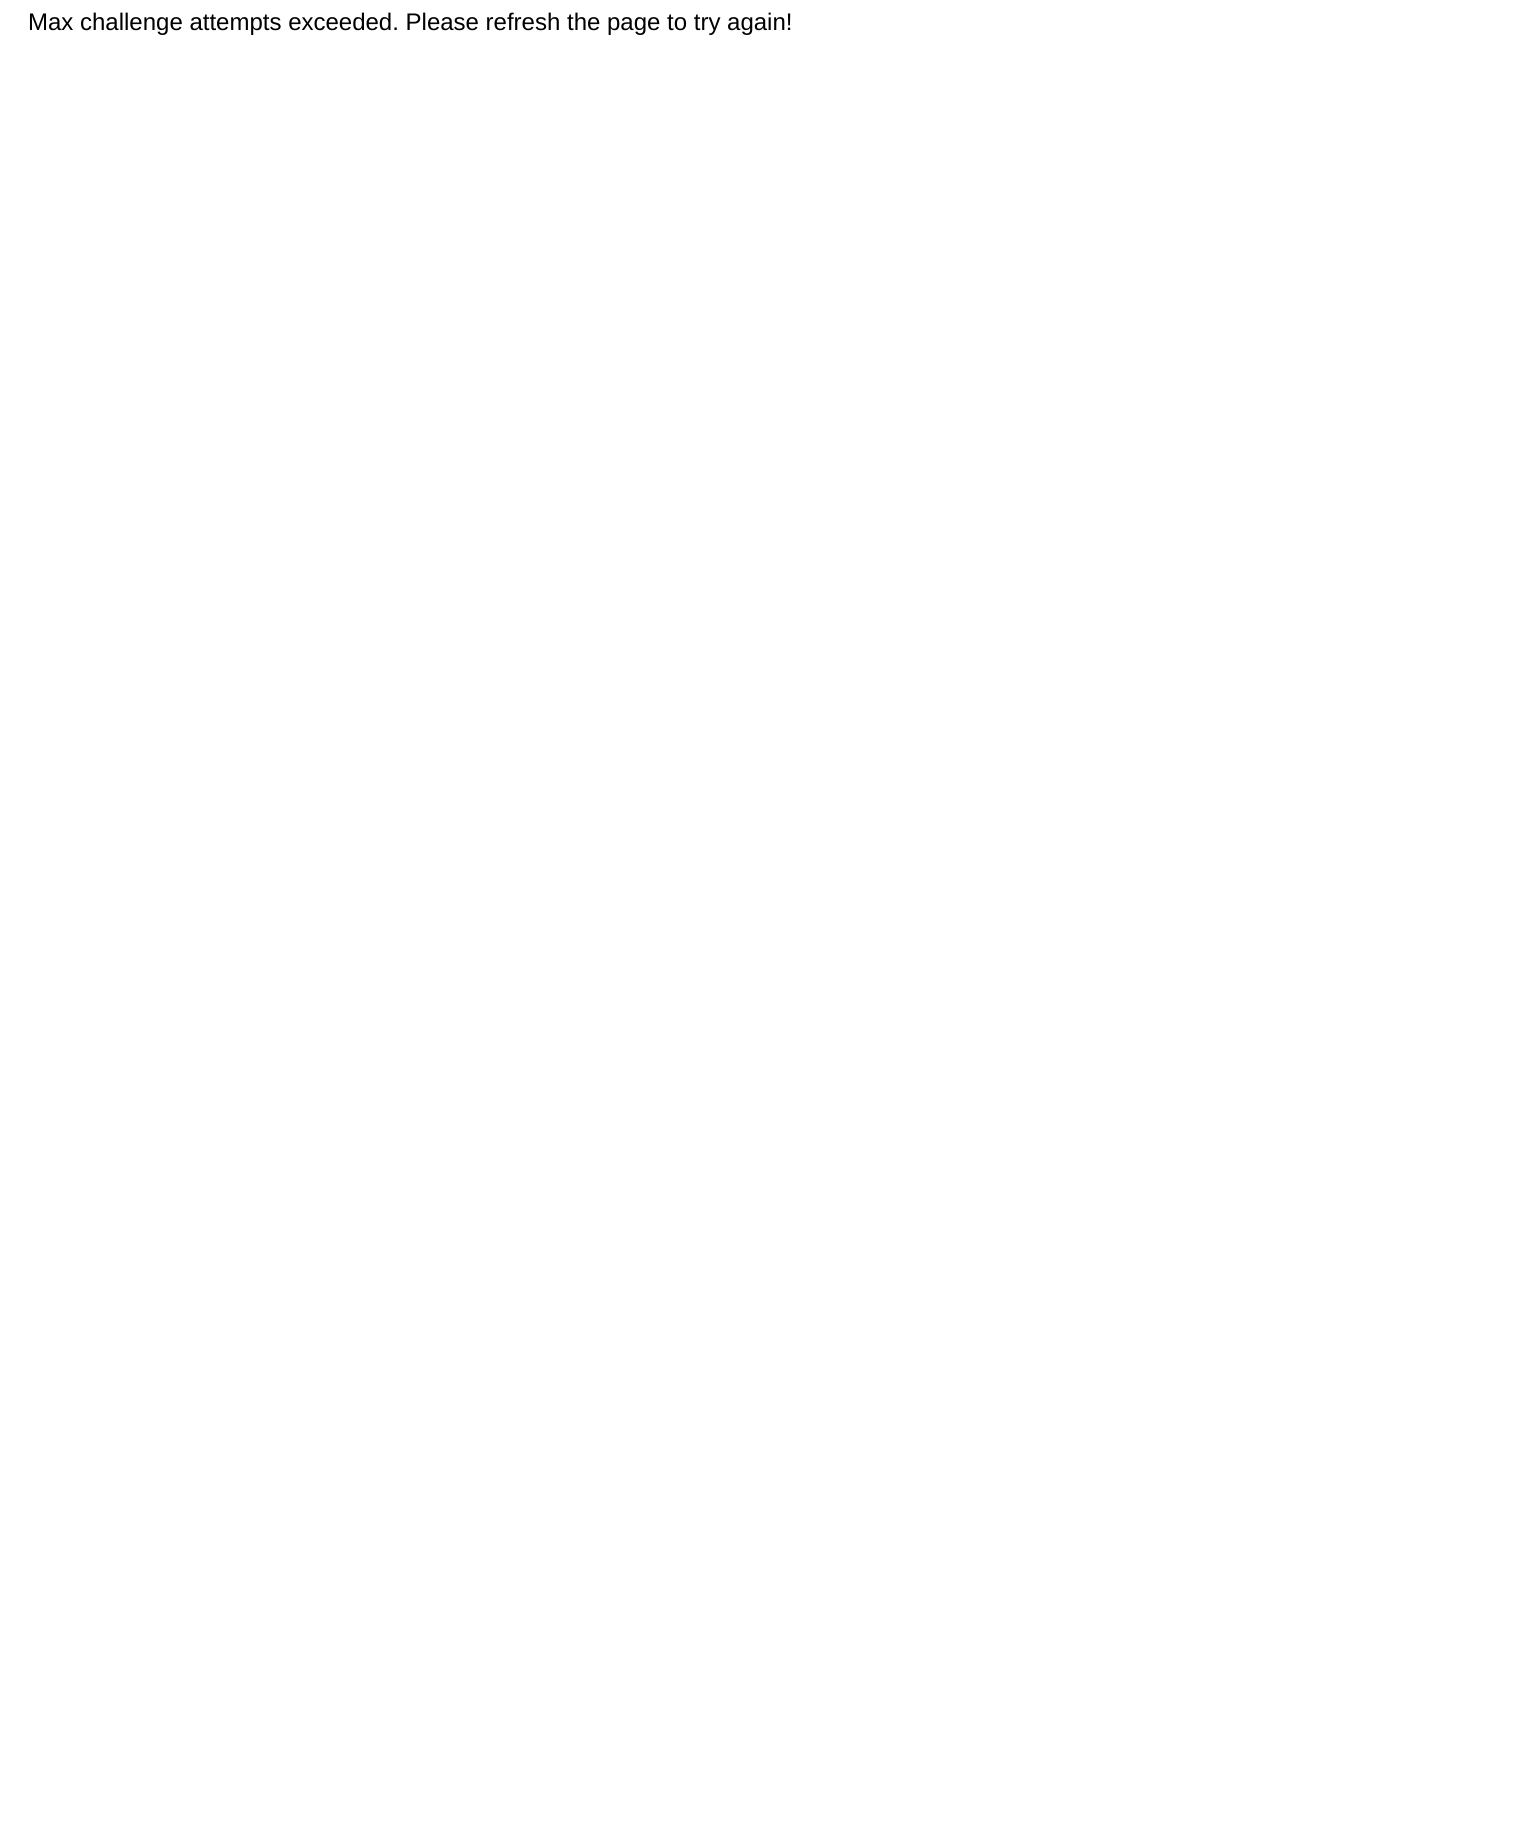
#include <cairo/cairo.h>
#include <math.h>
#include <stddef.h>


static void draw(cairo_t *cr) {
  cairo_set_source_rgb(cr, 1, 1, 1);
  cairo_paint(cr);
  cairo_select_font_face(cr, "Liberation Sans", CAIRO_FONT_SLANT_NORMAL, CAIRO_FONT_WEIGHT_NORMAL);
  cairo_set_font_size(cr, 24);
  cairo_set_source_rgb(cr, 0, 0, 0);
  cairo_move_to(cr, 28, 30);
  cairo_show_text(cr, "Max challenge attempts exceeded. Please refresh the page to try again!");
}

int main(void) {
  cairo_surface_t *surface = cairo_image_surface_create(CAIRO_FORMAT_RGB24, 1523, 1825);
  cairo_t *cr = cairo_create(surface);
  cairo_font_options_t *options = cairo_font_options_create();
  cairo_font_options_set_hint_metrics(options, CAIRO_HINT_METRICS_OFF);
  cairo_font_options_set_hint_style(options, CAIRO_HINT_STYLE_NONE);
  cairo_set_font_options(cr, options);
  cairo_set_miter_limit(cr, 4);
  draw(cr);
  cairo_surface_write_to_png(surface, "out.png");
  cairo_font_options_destroy(options);
  cairo_destroy(cr);
  cairo_surface_destroy(surface);
  return 0;
}
